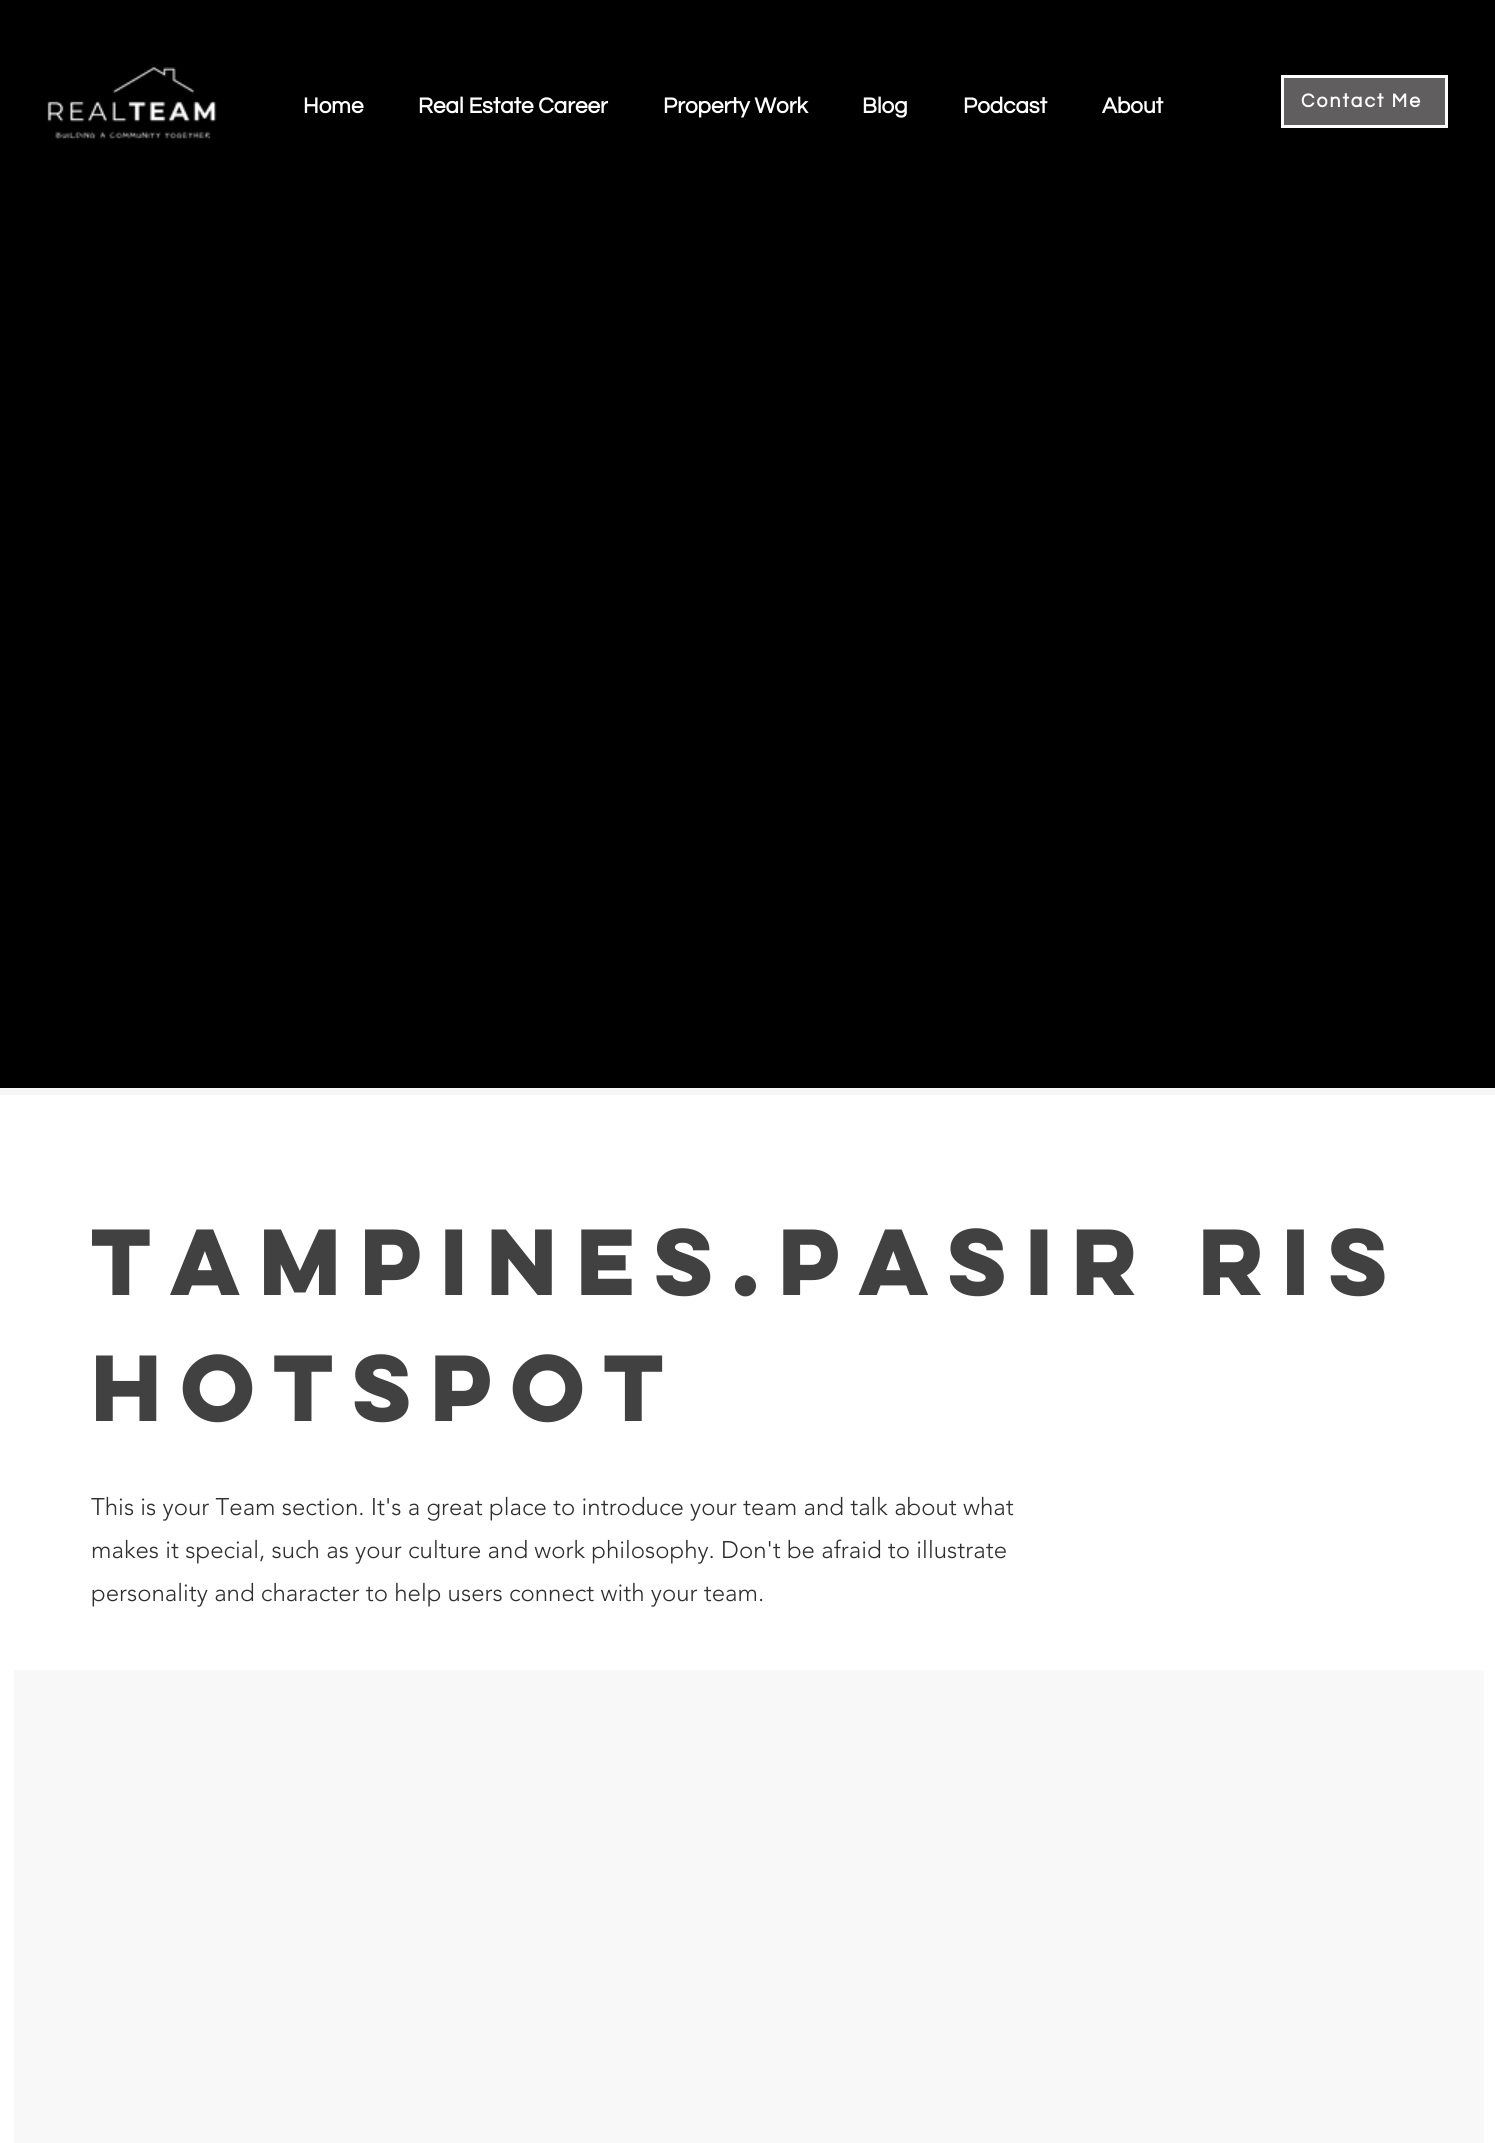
#include <cairo/cairo.h>
#include <math.h>
#include <stddef.h>


static void draw_spaced(cairo_t *cr, double x, double y, const char *s, double letter, double word) {
  cairo_move_to(cr, x, y);
  while (*s) {
    char ch[5] = {0};
    int n = 0;
    do ch[n++] = *s++; while ((*s & 0xC0) == 0x80);
    cairo_show_text(cr, ch);
    cairo_rel_move_to(cr, letter + word * (*ch == ' '), 0);
  }
}

static void draw_image(cairo_t *cr, const char *path, double x, double y, double w, double h) {
  cairo_surface_t *image = cairo_image_surface_create_from_png(path);
  cairo_save(cr);
  cairo_set_source_surface(cr, image, x, y);
  cairo_rectangle(cr, x, y, w, h);
  cairo_fill(cr);
  cairo_restore(cr);
  cairo_surface_destroy(image);
}

static void draw(cairo_t *cr) {
  cairo_set_source_rgb(cr, 246 / 255.0, 246 / 255.0, 246 / 255.0);
  cairo_paint(cr);
  cairo_set_source_rgb(cr, 0, 0, 0);
  cairo_rectangle(cr, 0, 0, 1495, 1088);
  cairo_fill(cr);
  draw_image(cr, "images/1.png", 47, 67, 170, 73);
  cairo_set_source_rgb(cr, 96 / 255.0, 94 / 255.0, 94 / 255.0);
  cairo_rectangle(cr, 1282.5, 76.5, 164, 50);
  cairo_fill_preserve(cr);
  cairo_set_source_rgb(cr, 1, 1, 1);
  cairo_set_line_width(cr, 3);
  cairo_stroke(cr);
  cairo_rectangle(cr, 0, 1095, 1495, 1048);
  cairo_fill(cr);
  cairo_set_source_rgb(cr, 248 / 255.0, 248 / 255.0, 248 / 255.0);
  cairo_rectangle(cr, 14, 1670, 1470, 473);
  cairo_fill(cr);
  cairo_select_font_face(cr, "Questrial", CAIRO_FONT_SLANT_NORMAL, CAIRO_FONT_WEIGHT_BOLD);
  cairo_set_font_size(cr, 22.5);
  cairo_set_source_rgb(cr, 1, 1, 1);
  cairo_move_to(cr, 303, 113);
  cairo_show_text(cr, "Home");
  cairo_move_to(cr, 418, 113);
  cairo_show_text(cr, "Real Estate Career");
  cairo_move_to(cr, 663, 113);
  cairo_show_text(cr, "Property Work");
  cairo_move_to(cr, 862, 113);
  cairo_show_text(cr, "Blog");
  cairo_move_to(cr, 963, 113);
  cairo_show_text(cr, "Podcast");
  cairo_move_to(cr, 1102, 113);
  cairo_show_text(cr, "About");
  cairo_set_font_size(cr, 19.5);
  draw_spaced(cr, 1301, 107, "Contact Me", 2, 0);
  cairo_select_font_face(cr, "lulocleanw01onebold", CAIRO_FONT_SLANT_NORMAL, CAIRO_FONT_WEIGHT_BOLD);
  cairo_set_font_size(cr, 84);
  cairo_set_source_rgb(cr, 65 / 255.0, 65 / 255.0, 65 / 255.0);
  cairo_move_to(cr, 91, 1295);
  cairo_show_text(cr, "Tampines.pasir ris");
  cairo_move_to(cr, 91, 1421);
  cairo_show_text(cr, "hotspot");
  cairo_select_font_face(cr, "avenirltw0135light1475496 Light", CAIRO_FONT_SLANT_NORMAL, CAIRO_FONT_WEIGHT_NORMAL);
  cairo_set_font_size(cr, 24);
  cairo_set_source_rgb(cr, 47 / 255.0, 46 / 255.0, 46 / 255.0);
  cairo_move_to(cr, 91, 1515);
  cairo_show_text(cr, "This is your Team section. It's a great place to introduce your team and talk about what");
  cairo_move_to(cr, 91, 1558);
  cairo_show_text(cr, "makes it special, such as your culture and work philosophy. Don't be afraid to illustrate");
  cairo_move_to(cr, 91, 1601);
  cairo_show_text(cr, "personality and character to help users connect with your team.");
}

int main(void) {
  cairo_surface_t *surface = cairo_image_surface_create(CAIRO_FORMAT_RGB24, 1495, 2143);
  cairo_t *cr = cairo_create(surface);
  cairo_font_options_t *options = cairo_font_options_create();
  cairo_font_options_set_hint_metrics(options, CAIRO_HINT_METRICS_OFF);
  cairo_font_options_set_hint_style(options, CAIRO_HINT_STYLE_NONE);
  cairo_set_font_options(cr, options);
  cairo_set_miter_limit(cr, 4);
  draw(cr);
  cairo_surface_write_to_png(surface, "out.png");
  cairo_font_options_destroy(options);
  cairo_destroy(cr);
  cairo_surface_destroy(surface);
  return 0;
}
